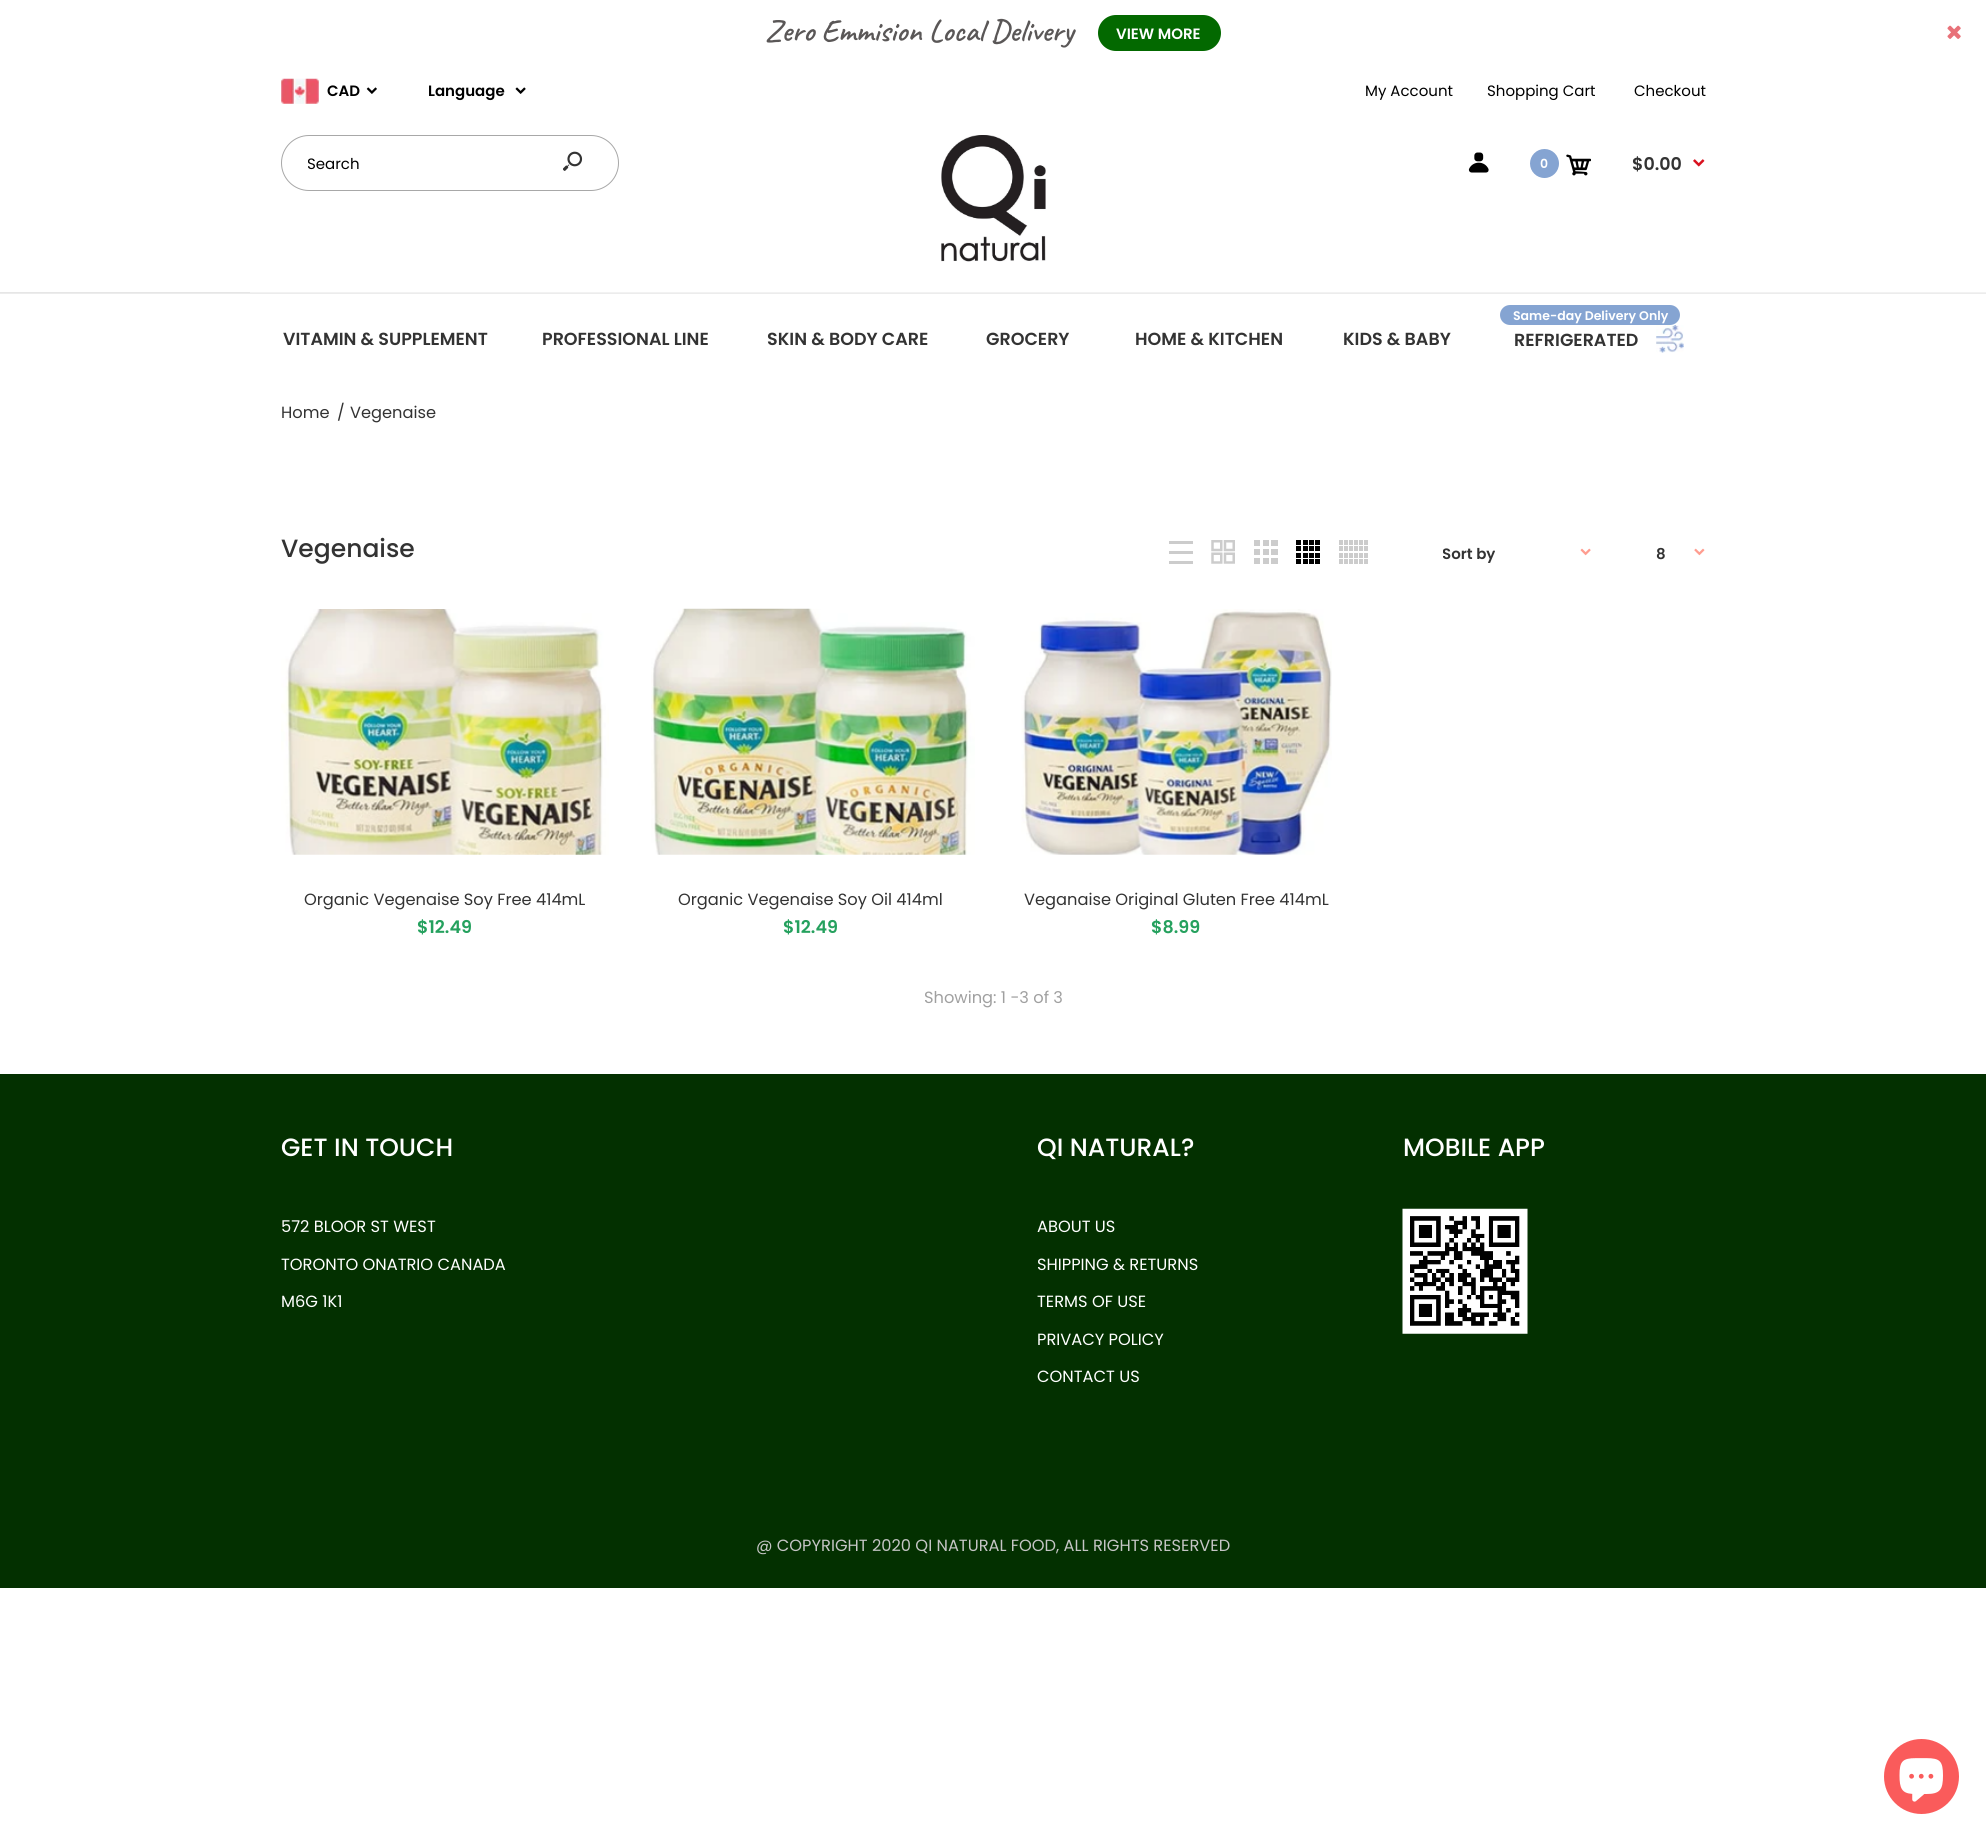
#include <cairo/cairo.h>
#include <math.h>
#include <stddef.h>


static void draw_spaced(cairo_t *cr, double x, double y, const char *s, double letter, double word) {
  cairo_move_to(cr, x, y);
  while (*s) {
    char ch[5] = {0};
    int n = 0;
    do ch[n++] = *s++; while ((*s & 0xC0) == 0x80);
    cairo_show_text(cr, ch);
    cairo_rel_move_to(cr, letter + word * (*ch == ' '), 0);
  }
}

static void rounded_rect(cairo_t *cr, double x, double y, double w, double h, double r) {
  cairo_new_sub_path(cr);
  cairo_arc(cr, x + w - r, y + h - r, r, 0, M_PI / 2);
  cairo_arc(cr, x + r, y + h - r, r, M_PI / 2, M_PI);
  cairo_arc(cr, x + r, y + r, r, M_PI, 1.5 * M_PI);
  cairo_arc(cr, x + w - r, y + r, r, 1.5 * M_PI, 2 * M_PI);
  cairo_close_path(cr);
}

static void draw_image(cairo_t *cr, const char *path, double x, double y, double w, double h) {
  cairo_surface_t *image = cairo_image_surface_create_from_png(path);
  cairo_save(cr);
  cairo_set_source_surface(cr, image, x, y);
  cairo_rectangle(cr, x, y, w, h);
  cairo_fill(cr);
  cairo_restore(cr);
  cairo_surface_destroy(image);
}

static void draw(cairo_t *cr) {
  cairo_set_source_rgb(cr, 1, 1, 1);
  cairo_paint(cr);
  cairo_set_source_rgb(cr, 3 / 255.0, 105 / 255.0, 0);
  rounded_rect(cr, 1098, 15, 123, 36, 18);
  cairo_fill(cr);
  draw_image(cr, "images/1.png", 1947, 25, 14, 14);
  draw_image(cr, "images/2.png", 281, 78, 38, 26);
  draw_image(cr, "images/3.png", 366, 87, 11, 7);
  draw_image(cr, "images/4.png", 515, 87, 11, 7);
  rounded_rect(cr, 281.5, 135.5, 337, 55, 27.5);
  cairo_set_source_rgb(cr, 168 / 255.0, 168 / 255.0, 168 / 255.0);
  cairo_set_line_width(cr, 1);
  cairo_stroke(cr);
  draw_image(cr, "images/5.png", 563, 151, 20, 20);
  draw_image(cr, "images/6.png", 941, 135, 105, 127);
  draw_image(cr, "images/7.png", 1468, 152, 21, 21);
  cairo_set_source_rgb(cr, 133 / 255.0, 164 / 255.0, 210 / 255.0);
  cairo_arc(cr, 1544.5, 163.5, 14.5, 0, 2 * M_PI);
  cairo_fill(cr);
  draw_image(cr, "images/8.png", 1566, 154, 25, 22);
  draw_image(cr, "images/9.png", 1693, 159, 12, 8);
  draw_image(cr, "images/10.png", 0, 292, 1986, 2);
  cairo_set_source_rgb(cr, 1, 1, 1);
  cairo_rectangle(cr, 0, 293, 250, 1);
  cairo_fill(cr);
  draw_image(cr, "images/11.png", 0, 292, 250, 2);
  cairo_set_source_rgb(cr, 133 / 255.0, 164 / 255.0, 210 / 255.0);
  rounded_rect(cr, 1500, 305, 180, 20, 10);
  cairo_fill(cr);
  draw_image(cr, "images/12.png", 1656, 325, 28, 28);
  cairo_set_source_rgb(cr, 204 / 255.0, 204 / 255.0, 204 / 255.0);
  cairo_rectangle(cr, 1169, 541, 24, 3);
  cairo_fill(cr);
  cairo_rectangle(cr, 1169, 551, 24, 3);
  cairo_fill(cr);
  cairo_rectangle(cr, 1169, 561, 24, 3);
  cairo_fill(cr);
  draw_image(cr, "images/13.png", 1211, 540, 24, 24);
  draw_image(cr, "images/14.png", 1254, 540, 24, 24);
  draw_image(cr, "images/15.png", 1296, 540, 24, 24);
  draw_image(cr, "images/16.png", 1339, 540, 29, 24);
  draw_image(cr, "images/17.png", 1580, 548, 11, 8);
  draw_image(cr, "images/18.png", 1694, 548, 11, 8);
  draw_image(cr, "images/19.png", 281, 609, 328, 246);
  draw_image(cr, "images/20.png", 651, 608, 324, 247);
  draw_image(cr, "images/21.png", 1021, 609, 311, 246);
  cairo_set_source_rgb(cr, 3 / 255.0, 48 / 255.0, 0);
  cairo_rectangle(cr, 0, 1074, 1986, 514);
  cairo_fill(cr);
  draw_image(cr, "images/22.png", 1402, 1208, 126, 126);
  cairo_set_source_rgb(cr, 250 / 255.0, 91 / 255.0, 91 / 255.0);
  cairo_arc(cr, 1921.5, 1776.5, 37.5, 0, 2 * M_PI);
  cairo_fill(cr);
  draw_image(cr, "images/23.png", 1899, 1758, 44, 44);
  cairo_select_font_face(cr, "Caveat SemiBold", CAIRO_FONT_SLANT_NORMAL, CAIRO_FONT_WEIGHT_NORMAL);
  cairo_set_font_size(cr, 31.25);
  cairo_set_source_rgb(cr, 90 / 255.0, 87 / 255.0, 87 / 255.0);
  draw_spaced(cr, 765, 41, "Zero Emmision Local Delivery", 0, -0.5);
  cairo_select_font_face(cr, "Poppins SemiBold", CAIRO_FONT_SLANT_NORMAL, CAIRO_FONT_WEIGHT_NORMAL);
  cairo_set_font_size(cr, 15);
  cairo_set_source_rgb(cr, 1, 1, 1);
  cairo_move_to(cr, 1116, 39);
  cairo_show_text(cr, "VIEW MORE");
  cairo_set_source_rgb(cr, 0, 0, 0);
  cairo_move_to(cr, 327, 96);
  cairo_show_text(cr, "CAD");
  cairo_move_to(cr, 428, 96);
  cairo_show_text(cr, "Language");
  cairo_select_font_face(cr, "Poppins", CAIRO_FONT_SLANT_NORMAL, CAIRO_FONT_WEIGHT_NORMAL);
  cairo_move_to(cr, 1365, 96);
  cairo_show_text(cr, "My Account");
  cairo_move_to(cr, 1487, 96);
  cairo_show_text(cr, "Shopping Cart");
  cairo_move_to(cr, 1634, 96);
  cairo_show_text(cr, "Checkout");
  cairo_save(cr);
  cairo_rectangle(cr, 308, 153, 261, 22);
  cairo_clip(cr);
  cairo_move_to(cr, 307, 169);
  cairo_show_text(cr, "Search");
  cairo_restore(cr);
  cairo_select_font_face(cr, "Poppins SemiBold", CAIRO_FONT_SLANT_NORMAL, CAIRO_FONT_WEIGHT_NORMAL);
  cairo_set_font_size(cr, 12.5);
  cairo_set_source_rgb(cr, 1, 1, 1);
  cairo_move_to(cr, 1540, 168);
  cairo_show_text(cr, "0");
  cairo_set_font_size(cr, 17.5);
  cairo_set_source_rgb(cr, 51 / 255.0, 51 / 255.0, 51 / 255.0);
  cairo_move_to(cr, 1632, 170);
  cairo_show_text(cr, "$0.00");
  cairo_move_to(cr, 283, 345);
  cairo_show_text(cr, "VITAMIN & SUPPLEMENT");
  cairo_move_to(cr, 542, 345);
  cairo_show_text(cr, "PROFESSIONAL LINE");
  cairo_move_to(cr, 767, 345);
  cairo_show_text(cr, "SKIN & BODY CARE");
  cairo_move_to(cr, 986, 345);
  cairo_show_text(cr, "GROCERY");
  cairo_move_to(cr, 1135, 345);
  cairo_show_text(cr, "HOME & KITCHEN");
  cairo_move_to(cr, 1343, 345);
  cairo_show_text(cr, "KIDS & BABY");
  cairo_set_font_size(cr, 12.5);
  cairo_set_source_rgb(cr, 1, 1, 1);
  cairo_move_to(cr, 1513, 320);
  cairo_show_text(cr, "Same-day Delivery Only");
  cairo_set_font_size(cr, 17.5);
  cairo_set_source_rgb(cr, 51 / 255.0, 51 / 255.0, 51 / 255.0);
  cairo_move_to(cr, 1514, 346);
  cairo_show_text(cr, "REFRIGERATED");
  cairo_select_font_face(cr, "Poppins", CAIRO_FONT_SLANT_NORMAL, CAIRO_FONT_WEIGHT_NORMAL);
  cairo_set_font_size(cr, 16.25);
  cairo_move_to(cr, 281, 418);
  cairo_show_text(cr, "Home");
  cairo_move_to(cr, 337, 418);
  cairo_show_text(cr, "/");
  cairo_move_to(cr, 350, 418);
  cairo_show_text(cr, "Vegenaise");
  cairo_select_font_face(cr, "Poppins Medium", CAIRO_FONT_SLANT_NORMAL, CAIRO_FONT_WEIGHT_NORMAL);
  cairo_set_font_size(cr, 25);
  cairo_move_to(cr, 281, 557);
  cairo_show_text(cr, "Vegenaise");
  cairo_save(cr);
  cairo_rectangle(cr, 1443, 541, 128, 24);
  cairo_clip(cr);
  cairo_select_font_face(cr, "Poppins SemiBold", CAIRO_FONT_SLANT_NORMAL, CAIRO_FONT_WEIGHT_NORMAL);
  cairo_set_font_size(cr, 15);
  cairo_move_to(cr, 1442, 559);
  cairo_show_text(cr, "Sort by");
  cairo_restore(cr);
  cairo_select_font_face(cr, "Poppins SemiBold", CAIRO_FONT_SLANT_NORMAL, CAIRO_FONT_WEIGHT_NORMAL);
  cairo_set_font_size(cr, 15);
  cairo_move_to(cr, 1656, 559);
  cairo_show_text(cr, "8");
  cairo_select_font_face(cr, "Poppins", CAIRO_FONT_SLANT_NORMAL, CAIRO_FONT_WEIGHT_NORMAL);
  cairo_set_font_size(cr, 16.25);
  cairo_move_to(cr, 304, 905);
  cairo_show_text(cr, "Organic Vegenaise Soy Free 414mL");
  cairo_select_font_face(cr, "Poppins SemiBold", CAIRO_FONT_SLANT_NORMAL, CAIRO_FONT_WEIGHT_NORMAL);
  cairo_set_font_size(cr, 17.5);
  cairo_set_source_rgb(cr, 37 / 255.0, 161 / 255.0, 94 / 255.0);
  cairo_move_to(cr, 417, 933);
  cairo_show_text(cr, "$12.49");
  cairo_select_font_face(cr, "Poppins", CAIRO_FONT_SLANT_NORMAL, CAIRO_FONT_WEIGHT_NORMAL);
  cairo_set_font_size(cr, 16.25);
  cairo_set_source_rgb(cr, 51 / 255.0, 51 / 255.0, 51 / 255.0);
  cairo_move_to(cr, 678, 905);
  cairo_show_text(cr, "Organic Vegenaise Soy Oil 414ml");
  cairo_select_font_face(cr, "Poppins SemiBold", CAIRO_FONT_SLANT_NORMAL, CAIRO_FONT_WEIGHT_NORMAL);
  cairo_set_font_size(cr, 17.5);
  cairo_set_source_rgb(cr, 37 / 255.0, 161 / 255.0, 94 / 255.0);
  cairo_move_to(cr, 783, 933);
  cairo_show_text(cr, "$12.49");
  cairo_select_font_face(cr, "Poppins", CAIRO_FONT_SLANT_NORMAL, CAIRO_FONT_WEIGHT_NORMAL);
  cairo_set_font_size(cr, 16.25);
  cairo_set_source_rgb(cr, 51 / 255.0, 51 / 255.0, 51 / 255.0);
  cairo_move_to(cr, 1024, 905);
  cairo_show_text(cr, "Veganaise Original Gluten Free 414mL");
  cairo_select_font_face(cr, "Poppins SemiBold", CAIRO_FONT_SLANT_NORMAL, CAIRO_FONT_WEIGHT_NORMAL);
  cairo_set_font_size(cr, 17.5);
  cairo_set_source_rgb(cr, 37 / 255.0, 161 / 255.0, 94 / 255.0);
  cairo_move_to(cr, 1151, 933);
  cairo_show_text(cr, "$8.99");
  cairo_select_font_face(cr, "Poppins", CAIRO_FONT_SLANT_NORMAL, CAIRO_FONT_WEIGHT_NORMAL);
  cairo_set_font_size(cr, 16.25);
  cairo_set_source_rgb(cr, 160 / 255.0, 160 / 255.0, 160 / 255.0);
  cairo_move_to(cr, 924, 1003);
  cairo_show_text(cr, "Showing: 1 -3 of 3");
  cairo_select_font_face(cr, "Poppins Medium", CAIRO_FONT_SLANT_NORMAL, CAIRO_FONT_WEIGHT_NORMAL);
  cairo_set_font_size(cr, 25);
  cairo_set_source_rgb(cr, 1, 1, 1);
  cairo_move_to(cr, 281, 1156);
  cairo_show_text(cr, "GET IN TOUCH");
  cairo_select_font_face(cr, "Poppins", CAIRO_FONT_SLANT_NORMAL, CAIRO_FONT_WEIGHT_NORMAL);
  cairo_set_font_size(cr, 16.25);
  cairo_move_to(cr, 281, 1232);
  cairo_show_text(cr, "572 BLOOR ST WEST");
  cairo_move_to(cr, 281, 1270);
  cairo_show_text(cr, "TORONTO ONATRIO CANADA");
  cairo_move_to(cr, 281, 1307);
  cairo_show_text(cr, "M6G 1K1");
  cairo_select_font_face(cr, "Poppins Medium", CAIRO_FONT_SLANT_NORMAL, CAIRO_FONT_WEIGHT_NORMAL);
  cairo_set_font_size(cr, 25);
  cairo_move_to(cr, 1037, 1156);
  cairo_show_text(cr, "QI NATURAL?");
  cairo_select_font_face(cr, "Poppins", CAIRO_FONT_SLANT_NORMAL, CAIRO_FONT_WEIGHT_NORMAL);
  cairo_set_font_size(cr, 16.25);
  cairo_move_to(cr, 1037, 1232);
  cairo_show_text(cr, "ABOUT US");
  cairo_move_to(cr, 1037, 1270);
  cairo_show_text(cr, "SHIPPING & RETURNS");
  cairo_move_to(cr, 1037, 1307);
  cairo_show_text(cr, "TERMS OF USE");
  cairo_move_to(cr, 1037, 1345);
  cairo_show_text(cr, "PRIVACY POLICY");
  cairo_move_to(cr, 1037, 1382);
  cairo_show_text(cr, "CONTACT US");
  cairo_select_font_face(cr, "Poppins Medium", CAIRO_FONT_SLANT_NORMAL, CAIRO_FONT_WEIGHT_NORMAL);
  cairo_set_font_size(cr, 25);
  cairo_move_to(cr, 1403, 1156);
  cairo_show_text(cr, "MOBILE APP");
  cairo_select_font_face(cr, "Poppins", CAIRO_FONT_SLANT_NORMAL, CAIRO_FONT_WEIGHT_NORMAL);
  cairo_set_font_size(cr, 16.25);
  cairo_set_source_rgb(cr, 197 / 255.0, 197 / 255.0, 197 / 255.0);
  cairo_move_to(cr, 756, 1551);
  cairo_show_text(cr, "@ COPYRIGHT 2020 QI NATURAL FOOD, ALL RIGHTS RESERVED");
}

int main(void) {
  cairo_surface_t *surface = cairo_image_surface_create(CAIRO_FORMAT_RGB24, 1986, 1839);
  cairo_t *cr = cairo_create(surface);
  cairo_font_options_t *options = cairo_font_options_create();
  cairo_font_options_set_hint_metrics(options, CAIRO_HINT_METRICS_OFF);
  cairo_font_options_set_hint_style(options, CAIRO_HINT_STYLE_NONE);
  cairo_set_font_options(cr, options);
  cairo_set_miter_limit(cr, 4);
  draw(cr);
  cairo_surface_write_to_png(surface, "out.png");
  cairo_font_options_destroy(options);
  cairo_destroy(cr);
  cairo_surface_destroy(surface);
  return 0;
}
